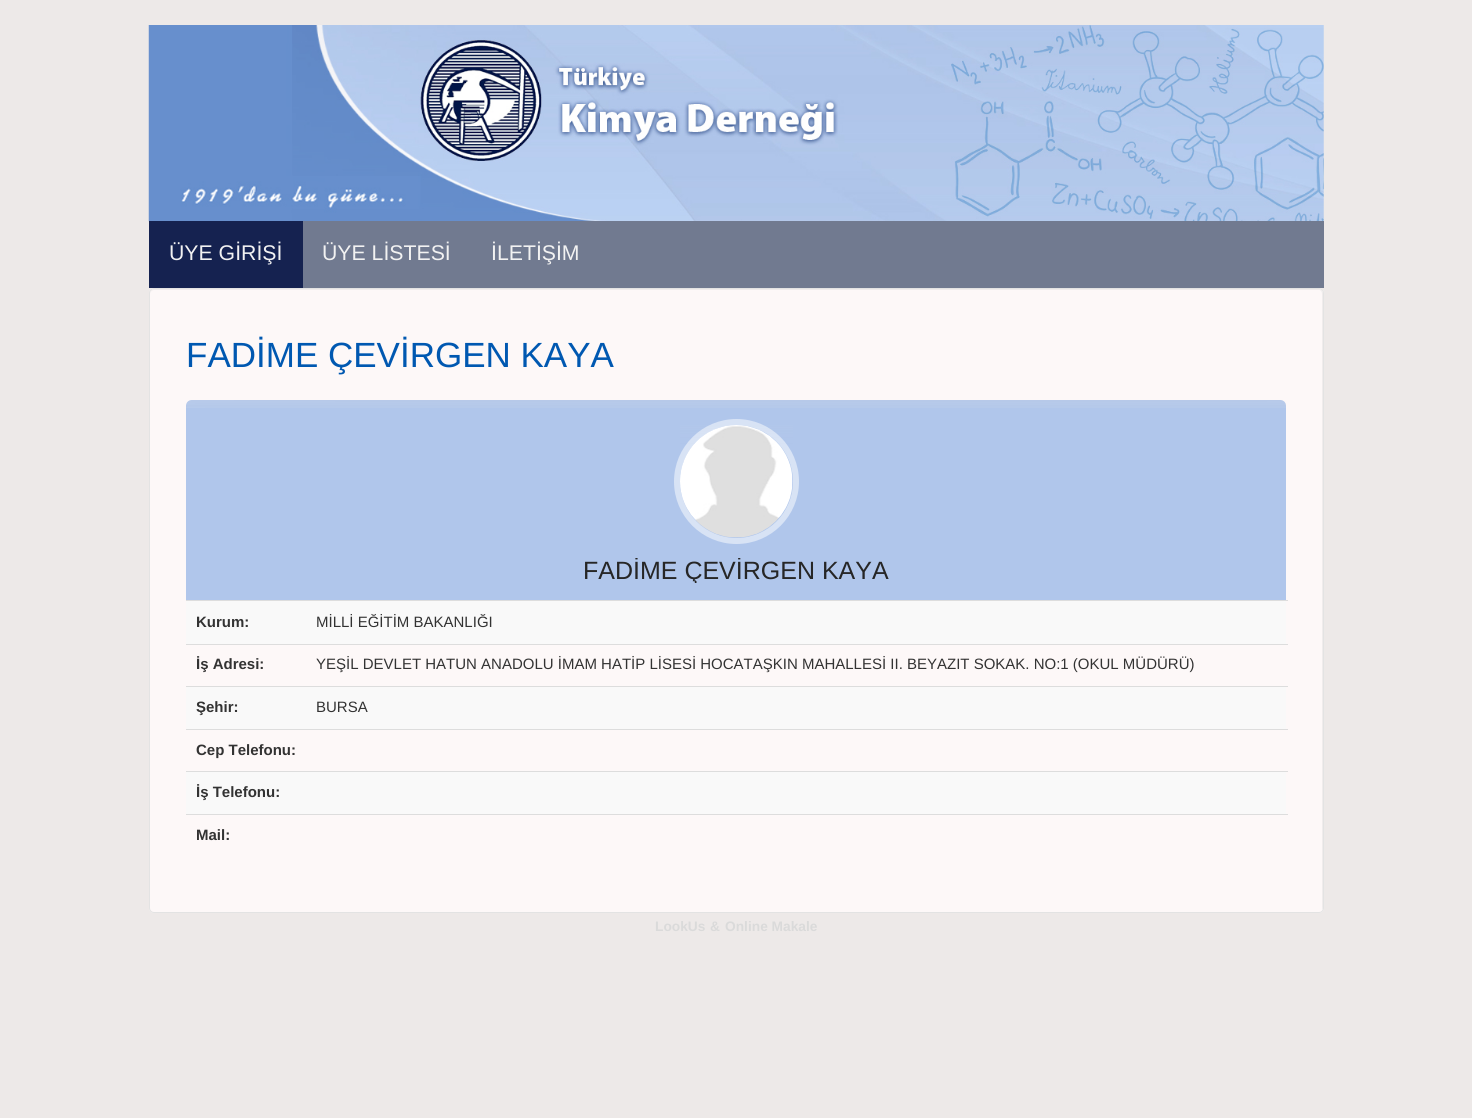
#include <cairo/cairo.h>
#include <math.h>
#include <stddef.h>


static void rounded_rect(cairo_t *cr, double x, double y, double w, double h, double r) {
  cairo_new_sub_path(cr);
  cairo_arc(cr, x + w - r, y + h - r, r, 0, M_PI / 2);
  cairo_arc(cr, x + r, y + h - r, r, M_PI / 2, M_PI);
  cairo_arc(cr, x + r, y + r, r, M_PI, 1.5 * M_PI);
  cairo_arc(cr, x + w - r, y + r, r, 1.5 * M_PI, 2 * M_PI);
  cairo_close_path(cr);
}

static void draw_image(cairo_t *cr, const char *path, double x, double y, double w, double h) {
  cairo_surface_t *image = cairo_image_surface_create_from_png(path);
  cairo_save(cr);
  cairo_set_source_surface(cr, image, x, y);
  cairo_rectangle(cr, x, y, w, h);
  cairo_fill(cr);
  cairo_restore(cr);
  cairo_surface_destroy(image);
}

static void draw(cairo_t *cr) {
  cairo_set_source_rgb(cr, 237 / 255.0, 233 / 255.0, 232 / 255.0);
  cairo_paint(cr);
  draw_image(cr, "images/1.png", 148, 25, 1176, 197);
  cairo_set_source_rgb(cr, 113 / 255.0, 122 / 255.0, 144 / 255.0);
  cairo_rectangle(cr, 303, 221, 1021, 67);
  cairo_fill(cr);
  cairo_set_source_rgb(cr, 21 / 255.0, 34 / 255.0, 80 / 255.0);
  cairo_rectangle(cr, 149, 221, 154, 67);
  cairo_fill(cr);
  cairo_set_source_rgb(cr, 253 / 255.0, 248 / 255.0, 248 / 255.0);
  rounded_rect(cr, 149, 288, 1175, 625, 5);
  cairo_fill(cr);
  cairo_set_source_rgb(cr, 240 / 255.0, 236 / 255.0, 236 / 255.0);
  cairo_new_path(cr);
  cairo_move_to(cr, 154, 290);
  cairo_line_to(cr, 1319, 290);
  cairo_curve_to(cr, 1321, 290, 1322, 292, 1322, 294);
  cairo_line_to(cr, 1322, 910);
  cairo_curve_to(cr, 1323, 909, 1323, 908, 1323, 907);
  cairo_line_to(cr, 1323, 293);
  cairo_curve_to(cr, 1323, 291, 1321, 289, 1319, 289);
  cairo_line_to(cr, 154, 289);
  cairo_curve_to(cr, 152, 289, 150, 291, 150, 293);
  cairo_line_to(cr, 150, 294);
  cairo_curve_to(cr, 150, 292, 152, 290, 154, 290);
  cairo_close_path(cr);
  cairo_fill(cr);
  rounded_rect(cr, 149.5, 288.5, 1174, 624, 4.5);
  cairo_set_source_rgb(cr, 227 / 255.0, 227 / 255.0, 227 / 255.0);
  cairo_set_line_width(cr, 1);
  cairo_stroke(cr);
  cairo_set_source_rgb(cr, 176 / 255.0, 198 / 255.0, 235 / 255.0);
  cairo_new_path(cr);
  cairo_move_to(cr, 192, 400);
  cairo_line_to(cr, 1280, 400);
  cairo_curve_to(cr, 1283.5, 400, 1286, 402.5, 1286, 406);
  cairo_line_to(cr, 1286, 600);
  cairo_line_to(cr, 186, 600);
  cairo_line_to(cr, 186, 406);
  cairo_curve_to(cr, 186, 402.5, 188.5, 400, 192, 400);
  cairo_close_path(cr);
  cairo_fill(cr);
  draw_image(cr, "images/2.png", 186, 400, 1100, 8);
  cairo_arc(cr, 736.5, 481.5, 59.5, 0, 2 * M_PI);
  cairo_set_source_rgb(cr, 216 / 255.0, 227 / 255.0, 245 / 255.0);
  cairo_set_line_width(cr, 6);
  cairo_stroke(cr);
  draw_image(cr, "images/3.png", 680, 425, 113, 113);
  cairo_set_source_rgb(cr, 249 / 255.0, 249 / 255.0, 249 / 255.0);
  cairo_rectangle(cr, 186, 601, 1100, 43);
  cairo_fill(cr);
  cairo_set_source_rgb(cr, 221 / 255.0, 221 / 255.0, 221 / 255.0);
  cairo_rectangle(cr, 186, 600, 1102, 1);
  cairo_fill(cr);
  cairo_rectangle(cr, 186, 644, 1102, 1);
  cairo_fill(cr);
  cairo_set_source_rgb(cr, 249 / 255.0, 249 / 255.0, 249 / 255.0);
  cairo_rectangle(cr, 186, 687, 1100, 42);
  cairo_fill(cr);
  cairo_set_source_rgb(cr, 221 / 255.0, 221 / 255.0, 221 / 255.0);
  cairo_rectangle(cr, 186, 686, 1102, 1);
  cairo_fill(cr);
  cairo_rectangle(cr, 186, 729, 1102, 1);
  cairo_fill(cr);
  cairo_set_source_rgb(cr, 249 / 255.0, 249 / 255.0, 249 / 255.0);
  cairo_rectangle(cr, 186, 772, 1100, 42);
  cairo_fill(cr);
  cairo_set_source_rgb(cr, 221 / 255.0, 221 / 255.0, 221 / 255.0);
  cairo_rectangle(cr, 186, 771, 1102, 1);
  cairo_fill(cr);
  cairo_rectangle(cr, 186, 814, 1102, 1);
  cairo_fill(cr);
  cairo_select_font_face(cr, "Liberation Sans", CAIRO_FONT_SLANT_NORMAL, CAIRO_FONT_WEIGHT_NORMAL);
  cairo_set_font_size(cr, 21.25);
  cairo_set_source_rgb(cr, 242 / 255.0, 242 / 255.0, 242 / 255.0);
  cairo_move_to(cr, 169, 260);
  cairo_show_text(cr, "ÜYE GİRİŞİ");
  cairo_move_to(cr, 322, 260);
  cairo_show_text(cr, "ÜYE LİSTESİ");
  cairo_move_to(cr, 491, 260);
  cairo_show_text(cr, "İLETİŞİM");
  cairo_set_font_size(cr, 35);
  cairo_set_source_rgb(cr, 0, 88 / 255.0, 177 / 255.0);
  cairo_move_to(cr, 186, 367);
  cairo_show_text(cr, "FADİME ÇEVİRGEN KAYA");
  cairo_save(cr);
  cairo_rectangle(cr, 186, 558, 1100, 25);
  cairo_clip(cr);
  cairo_set_font_size(cr, 25);
  cairo_set_source_rgb(cr, 38 / 255.0, 38 / 255.0, 38 / 255.0);
  cairo_move_to(cr, 583, 579);
  cairo_show_text(cr, "FADİME ÇEVİRGEN KAYA");
  cairo_restore(cr);
  cairo_select_font_face(cr, "Liberation Sans", CAIRO_FONT_SLANT_NORMAL, CAIRO_FONT_WEIGHT_BOLD);
  cairo_set_font_size(cr, 15);
  cairo_set_source_rgb(cr, 51 / 255.0, 51 / 255.0, 51 / 255.0);
  cairo_move_to(cr, 196, 627);
  cairo_show_text(cr, "Kurum:");
  cairo_select_font_face(cr, "Liberation Sans", CAIRO_FONT_SLANT_NORMAL, CAIRO_FONT_WEIGHT_NORMAL);
  cairo_move_to(cr, 316, 627);
  cairo_show_text(cr, "MİLLİ EĞİTİM BAKANLIĞI");
  cairo_select_font_face(cr, "Liberation Sans", CAIRO_FONT_SLANT_NORMAL, CAIRO_FONT_WEIGHT_BOLD);
  cairo_move_to(cr, 196, 669);
  cairo_show_text(cr, "İş Adresi:");
  cairo_select_font_face(cr, "Liberation Sans", CAIRO_FONT_SLANT_NORMAL, CAIRO_FONT_WEIGHT_NORMAL);
  cairo_move_to(cr, 316, 669);
  cairo_show_text(cr, "YEŞİL DEVLET HATUN ANADOLU İMAM HATİP LİSESİ HOCATAŞKIN MAHALLESİ II. BEYAZIT SOKAK. NO:1 (OKUL MÜDÜRÜ)");
  cairo_select_font_face(cr, "Liberation Sans", CAIRO_FONT_SLANT_NORMAL, CAIRO_FONT_WEIGHT_BOLD);
  cairo_move_to(cr, 196, 712);
  cairo_show_text(cr, "Şehir:");
  cairo_select_font_face(cr, "Liberation Sans", CAIRO_FONT_SLANT_NORMAL, CAIRO_FONT_WEIGHT_NORMAL);
  cairo_move_to(cr, 316, 712);
  cairo_show_text(cr, "BURSA");
  cairo_select_font_face(cr, "Liberation Sans", CAIRO_FONT_SLANT_NORMAL, CAIRO_FONT_WEIGHT_BOLD);
  cairo_move_to(cr, 196, 755);
  cairo_show_text(cr, "Cep Telefonu:");
  cairo_move_to(cr, 196, 797);
  cairo_show_text(cr, "İş Telefonu:");
  cairo_move_to(cr, 196, 840);
  cairo_show_text(cr, "Mail:");
  cairo_set_font_size(cr, 13.75);
  cairo_set_source_rgb(cr, 218 / 255.0, 218 / 255.0, 218 / 255.0);
  cairo_move_to(cr, 655, 931);
  cairo_show_text(cr, "LookUs");
  cairo_move_to(cr, 710, 931);
  cairo_show_text(cr, "&");
  cairo_move_to(cr, 725, 931);
  cairo_show_text(cr, "Online Makale");
}

int main(void) {
  cairo_surface_t *surface = cairo_image_surface_create(CAIRO_FORMAT_RGB24, 1472, 1118);
  cairo_t *cr = cairo_create(surface);
  cairo_font_options_t *options = cairo_font_options_create();
  cairo_font_options_set_hint_metrics(options, CAIRO_HINT_METRICS_OFF);
  cairo_font_options_set_hint_style(options, CAIRO_HINT_STYLE_NONE);
  cairo_set_font_options(cr, options);
  cairo_set_miter_limit(cr, 4);
  draw(cr);
  cairo_surface_write_to_png(surface, "out.png");
  cairo_font_options_destroy(options);
  cairo_destroy(cr);
  cairo_surface_destroy(surface);
  return 0;
}
